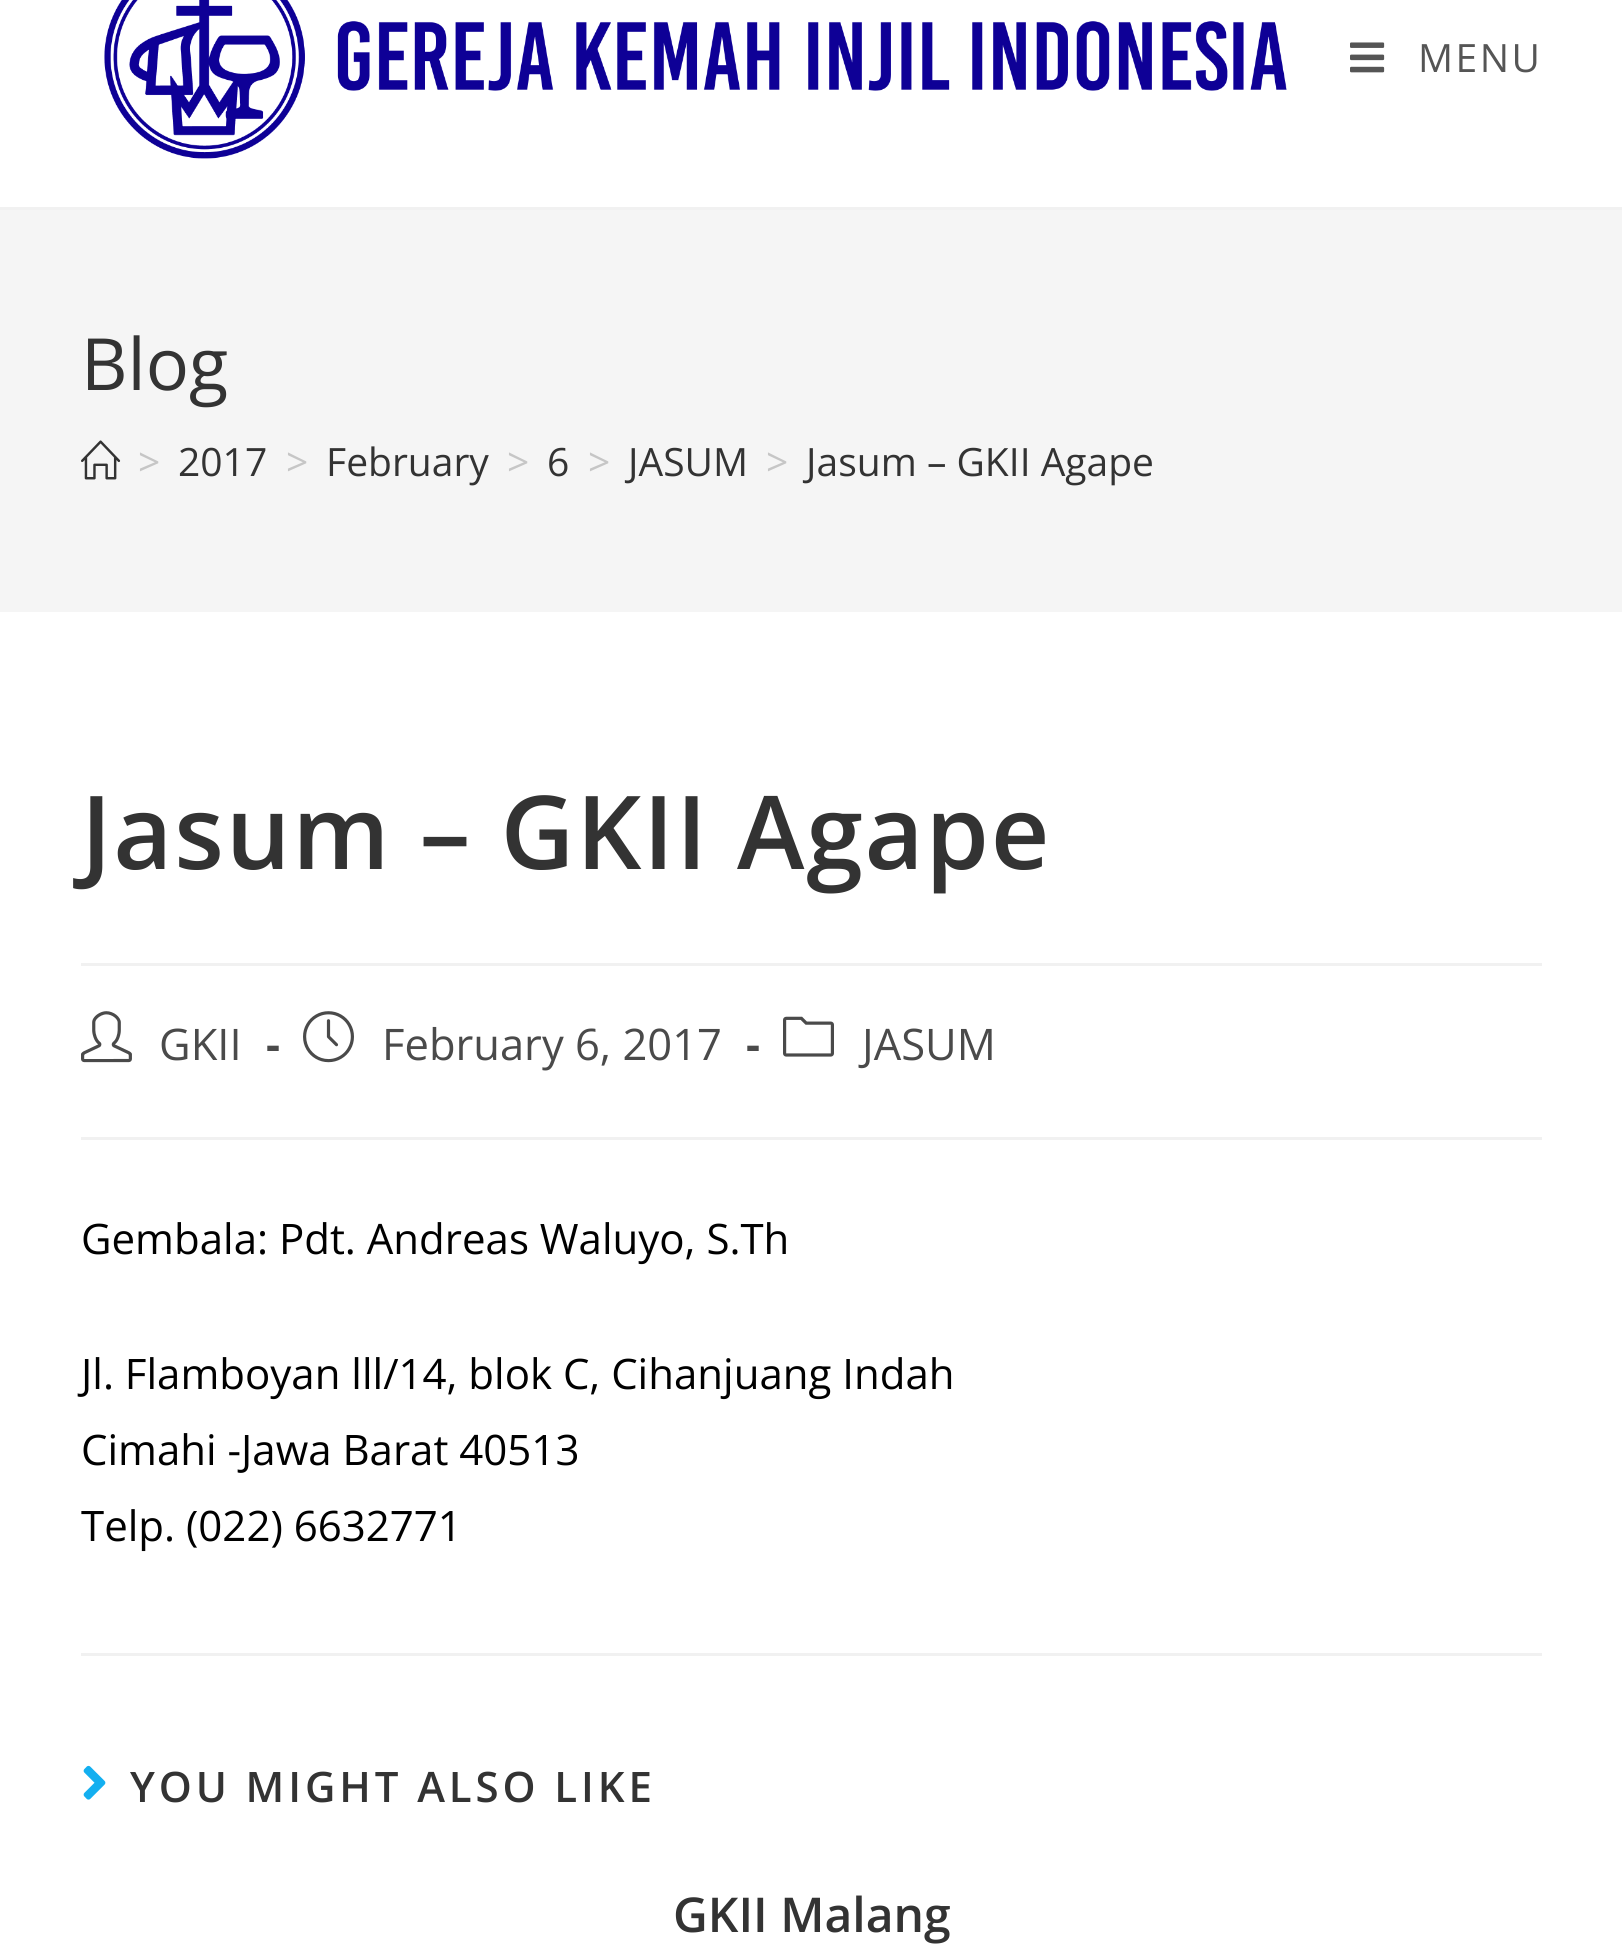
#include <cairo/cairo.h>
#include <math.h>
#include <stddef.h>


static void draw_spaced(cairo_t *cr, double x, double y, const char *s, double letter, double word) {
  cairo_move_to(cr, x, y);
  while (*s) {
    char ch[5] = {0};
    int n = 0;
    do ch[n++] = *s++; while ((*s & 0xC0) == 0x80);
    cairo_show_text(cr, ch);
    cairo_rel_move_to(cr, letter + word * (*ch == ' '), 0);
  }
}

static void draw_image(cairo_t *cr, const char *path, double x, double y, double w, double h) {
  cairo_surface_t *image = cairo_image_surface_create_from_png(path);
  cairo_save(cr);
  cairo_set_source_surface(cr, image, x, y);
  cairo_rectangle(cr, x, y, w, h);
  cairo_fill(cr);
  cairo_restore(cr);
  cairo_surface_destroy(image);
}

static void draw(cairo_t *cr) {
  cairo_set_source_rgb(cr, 1, 1, 1);
  cairo_paint(cr);
  cairo_set_source_rgb(cr, 241 / 255.0, 241 / 255.0, 241 / 255.0);
  cairo_rectangle(cr, 0, 207, 1622, 3);
  cairo_fill(cr);
  draw_image(cr, "images/1.png", 104, 0, 1183, 159);
  draw_image(cr, "images/2.png", 1350, 42, 35, 31);
  cairo_set_source_rgb(cr, 245 / 255.0, 245 / 255.0, 245 / 255.0);
  cairo_rectangle(cr, 0, 210, 1622, 402);
  cairo_fill(cr);
  draw_image(cr, "images/3.png", 81, 440, 40, 40);
  cairo_set_source_rgb(cr, 241 / 255.0, 241 / 255.0, 241 / 255.0);
  cairo_rectangle(cr, 81, 963, 1461, 3);
  cairo_fill(cr);
  cairo_rectangle(cr, 81, 1137, 1461, 3);
  cairo_fill(cr);
  draw_image(cr, "images/4.png", 81, 1011, 51, 52);
  draw_image(cr, "images/5.png", 303, 1011, 51, 52);
  draw_image(cr, "images/6.png", 783, 1016, 51, 41);
  cairo_rectangle(cr, 81, 1653, 1461, 3);
  cairo_fill(cr);
  draw_image(cr, "images/7.png", 83, 1765, 23, 35);
  cairo_select_font_face(cr, "Open Sans", CAIRO_FONT_SLANT_NORMAL, CAIRO_FONT_WEIGHT_NORMAL);
  cairo_set_font_size(cr, 39);
  cairo_set_source_rgb(cr, 85 / 255.0, 85 / 255.0, 85 / 255.0);
  draw_spaced(cr, 1418, 72, "MENU", 2.5, 0);
  cairo_set_font_size(cr, 72);
  cairo_set_source_rgb(cr, 51 / 255.0, 51 / 255.0, 51 / 255.0);
  cairo_move_to(cr, 81, 390);
  cairo_show_text(cr, "Blog");
  cairo_set_font_size(cr, 39);
  cairo_set_source_rgb(cr, 198 / 255.0, 198 / 255.0, 198 / 255.0);
  cairo_move_to(cr, 138, 476);
  cairo_show_text(cr, ">");
  cairo_set_source_rgb(cr, 51 / 255.0, 51 / 255.0, 51 / 255.0);
  cairo_move_to(cr, 178, 476);
  cairo_show_text(cr, "2017");
  cairo_set_source_rgb(cr, 198 / 255.0, 198 / 255.0, 198 / 255.0);
  cairo_move_to(cr, 286, 476);
  cairo_show_text(cr, ">");
  cairo_set_source_rgb(cr, 51 / 255.0, 51 / 255.0, 51 / 255.0);
  cairo_move_to(cr, 326, 476);
  cairo_show_text(cr, "February");
  cairo_set_source_rgb(cr, 198 / 255.0, 198 / 255.0, 198 / 255.0);
  cairo_move_to(cr, 507, 476);
  cairo_show_text(cr, ">");
  cairo_set_source_rgb(cr, 51 / 255.0, 51 / 255.0, 51 / 255.0);
  cairo_move_to(cr, 547, 476);
  cairo_show_text(cr, "6");
  cairo_set_source_rgb(cr, 198 / 255.0, 198 / 255.0, 198 / 255.0);
  cairo_move_to(cr, 588, 476);
  cairo_show_text(cr, ">");
  cairo_set_source_rgb(cr, 51 / 255.0, 51 / 255.0, 51 / 255.0);
  cairo_move_to(cr, 628, 476);
  cairo_show_text(cr, "JASUM");
  cairo_set_source_rgb(cr, 198 / 255.0, 198 / 255.0, 198 / 255.0);
  cairo_move_to(cr, 766, 476);
  cairo_show_text(cr, ">");
  cairo_set_source_rgb(cr, 51 / 255.0, 51 / 255.0, 51 / 255.0);
  cairo_move_to(cr, 806, 476);
  cairo_show_text(cr, "Jasum – GKII Agape");
  cairo_select_font_face(cr, "Open Sans SemiBold", CAIRO_FONT_SLANT_NORMAL, CAIRO_FONT_WEIGHT_NORMAL);
  cairo_set_font_size(cr, 102);
  draw_spaced(cr, 81, 869, "Jasum – GKII Agape", 1.75, 0);
  cairo_select_font_face(cr, "Open Sans", CAIRO_FONT_SLANT_NORMAL, CAIRO_FONT_WEIGHT_NORMAL);
  cairo_set_font_size(cr, 43.5);
  cairo_set_source_rgb(cr, 74 / 255.0, 74 / 255.0, 74 / 255.0);
  cairo_move_to(cr, 159, 1060);
  cairo_show_text(cr, "GKII");
  cairo_select_font_face(cr, "Open Sans", CAIRO_FONT_SLANT_NORMAL, CAIRO_FONT_WEIGHT_BOLD);
  cairo_move_to(cr, 266, 1060);
  cairo_show_text(cr, "-");
  cairo_select_font_face(cr, "Open Sans", CAIRO_FONT_SLANT_NORMAL, CAIRO_FONT_WEIGHT_NORMAL);
  cairo_move_to(cr, 382, 1060);
  cairo_show_text(cr, "February 6, 2017");
  cairo_select_font_face(cr, "Open Sans", CAIRO_FONT_SLANT_NORMAL, CAIRO_FONT_WEIGHT_BOLD);
  cairo_move_to(cr, 746, 1060);
  cairo_show_text(cr, "-");
  cairo_select_font_face(cr, "Open Sans", CAIRO_FONT_SLANT_NORMAL, CAIRO_FONT_WEIGHT_NORMAL);
  cairo_move_to(cr, 862, 1060);
  cairo_show_text(cr, "JASUM");
  cairo_set_font_size(cr, 42);
  cairo_set_source_rgb(cr, 0, 0, 0);
  cairo_move_to(cr, 81, 1254);
  cairo_show_text(cr, "Gembala: Pdt. Andreas Waluyo, S.Th");
  cairo_move_to(cr, 81, 1389);
  cairo_show_text(cr, "Jl. Flamboyan lll/14, blok C, Cihanjuang Indah");
  cairo_move_to(cr, 81, 1465);
  cairo_show_text(cr, "Cimahi -Jawa Barat 40513");
  cairo_move_to(cr, 81, 1541);
  cairo_show_text(cr, "Telp. (022) 6632771");
  cairo_select_font_face(cr, "Open Sans SemiBold", CAIRO_FONT_SLANT_NORMAL, CAIRO_FONT_WEIGHT_NORMAL);
  cairo_set_source_rgb(cr, 51 / 255.0, 51 / 255.0, 51 / 255.0);
  draw_spaced(cr, 130, 1802, "YOU MIGHT ALSO LIKE", 3.9, 0);
  cairo_set_font_size(cr, 48);
  cairo_move_to(cr, 673, 1932);
  cairo_show_text(cr, "GKII Malang");
}

int main(void) {
  cairo_surface_t *surface = cairo_image_surface_create(CAIRO_FORMAT_RGB24, 1622, 1955);
  cairo_t *cr = cairo_create(surface);
  cairo_font_options_t *options = cairo_font_options_create();
  cairo_font_options_set_hint_metrics(options, CAIRO_HINT_METRICS_OFF);
  cairo_font_options_set_hint_style(options, CAIRO_HINT_STYLE_NONE);
  cairo_set_font_options(cr, options);
  cairo_set_miter_limit(cr, 4);
  draw(cr);
  cairo_surface_write_to_png(surface, "out.png");
  cairo_font_options_destroy(options);
  cairo_destroy(cr);
  cairo_surface_destroy(surface);
  return 0;
}
